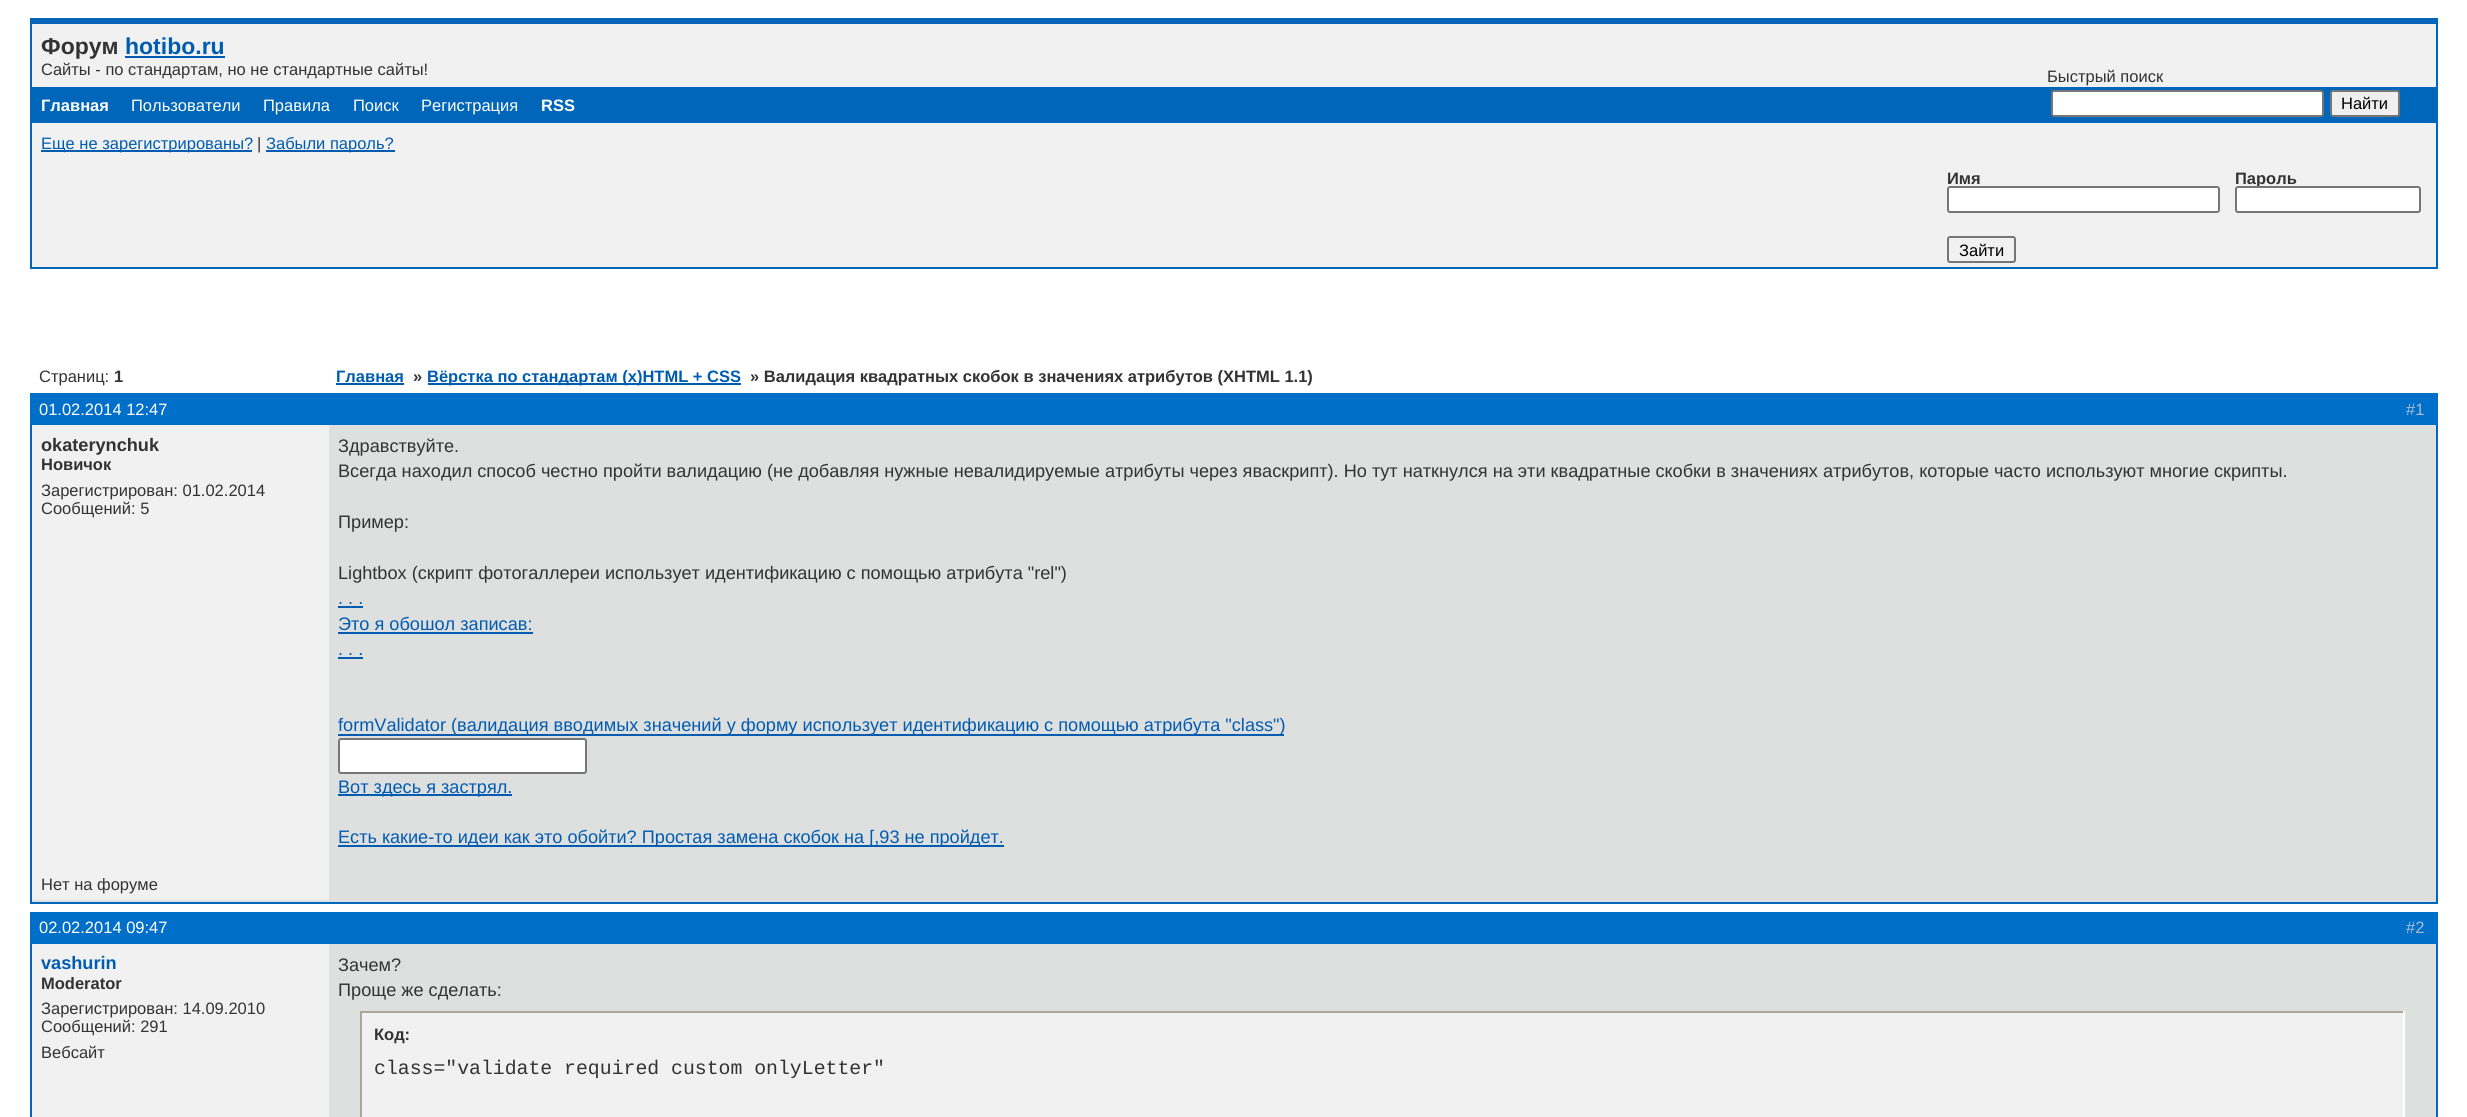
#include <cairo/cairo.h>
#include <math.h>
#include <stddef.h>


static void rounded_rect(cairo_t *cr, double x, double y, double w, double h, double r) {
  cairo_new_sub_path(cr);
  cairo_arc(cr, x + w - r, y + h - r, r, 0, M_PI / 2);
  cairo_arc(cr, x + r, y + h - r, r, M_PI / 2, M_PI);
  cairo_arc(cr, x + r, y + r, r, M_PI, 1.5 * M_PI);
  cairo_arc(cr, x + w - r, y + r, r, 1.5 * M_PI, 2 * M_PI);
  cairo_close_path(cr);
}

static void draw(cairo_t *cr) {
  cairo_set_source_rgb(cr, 1, 1, 1);
  cairo_paint(cr);
  cairo_set_source_rgb(cr, 241 / 255.0, 241 / 255.0, 241 / 255.0);
  cairo_rectangle(cr, 32, 24, 2404, 243);
  cairo_fill(cr);
  cairo_set_source_rgb(cr, 0, 102 / 255.0, 185 / 255.0);
  cairo_rectangle(cr, 30, 18, 2408, 6);
  cairo_fill(cr);
  cairo_rectangle(cr, 2436, 18, 2, 251);
  cairo_fill(cr);
  cairo_rectangle(cr, 30, 267, 2408, 2);
  cairo_fill(cr);
  cairo_rectangle(cr, 30, 18, 2, 251);
  cairo_fill(cr);
  cairo_set_source_rgb(cr, 0, 92 / 255.0, 177 / 255.0);
  cairo_rectangle(cr, 125, 56, 100, 2);
  cairo_fill(cr);
  cairo_set_source_rgb(cr, 0, 102 / 255.0, 185 / 255.0);
  cairo_rectangle(cr, 32, 87, 2404, 36);
  cairo_fill(cr);
  cairo_set_source_rgb(cr, 1, 1, 1);
  rounded_rect(cr, 2052, 91, 271, 25, 2);
  cairo_fill_preserve(cr);
  cairo_set_source_rgb(cr, 118 / 255.0, 118 / 255.0, 118 / 255.0);
  cairo_stroke(cr);
  cairo_set_source_rgb(cr, 239 / 255.0, 239 / 255.0, 239 / 255.0);
  rounded_rect(cr, 2331, 91, 68, 25, 2);
  cairo_fill_preserve(cr);
  cairo_set_source_rgb(cr, 118 / 255.0, 118 / 255.0, 118 / 255.0);
  cairo_stroke(cr);
  cairo_set_source_rgb(cr, 0, 92 / 255.0, 177 / 255.0);
  cairo_rectangle(cr, 41, 150, 211, 2);
  cairo_fill(cr);
  cairo_rectangle(cr, 266, 150, 129, 2);
  cairo_fill(cr);
  cairo_set_source_rgb(cr, 1, 1, 1);
  rounded_rect(cr, 1948, 187, 271, 25, 2);
  cairo_fill_preserve(cr);
  cairo_set_source_rgb(cr, 118 / 255.0, 118 / 255.0, 118 / 255.0);
  cairo_stroke(cr);
  rounded_rect(cr, 1948, 237, 67, 25, 2);
  cairo_stroke(cr);
  cairo_set_source_rgb(cr, 0, 92 / 255.0, 177 / 255.0);
  cairo_rectangle(cr, 336, 383, 68, 2);
  cairo_fill(cr);
  cairo_rectangle(cr, 428, 383, 313, 2);
  cairo_fill(cr);
  cairo_set_source_rgb(cr, 0, 111 / 255.0, 201 / 255.0);
  cairo_rectangle(cr, 30, 393, 2408, 32);
  cairo_fill(cr);
  cairo_set_source_rgb(cr, 222 / 255.0, 223 / 255.0, 223 / 255.0);
  cairo_rectangle(cr, 32, 425, 2404, 477);
  cairo_fill(cr);
  cairo_set_source_rgb(cr, 0, 102 / 255.0, 185 / 255.0);
  cairo_rectangle(cr, 2436, 423, 2, 480);
  cairo_fill(cr);
  cairo_rectangle(cr, 30, 902, 2408, 2);
  cairo_fill(cr);
  cairo_rectangle(cr, 30, 423, 2, 480);
  cairo_fill(cr);
  cairo_set_source_rgb(cr, 241 / 255.0, 241 / 255.0, 241 / 255.0);
  cairo_rectangle(cr, 32, 425, 297, 475);
  cairo_fill(cr);
  cairo_set_source_rgb(cr, 0, 92 / 255.0, 177 / 255.0);
  cairo_rectangle(cr, 338, 606, 25, 2);
  cairo_fill(cr);
  cairo_rectangle(cr, 338, 632, 195, 2);
  cairo_fill(cr);
  cairo_rectangle(cr, 338, 657, 25, 2);
  cairo_fill(cr);
  cairo_rectangle(cr, 338, 734, 946, 2);
  cairo_fill(cr);
  cairo_set_source_rgb(cr, 1, 1, 1);
  rounded_rect(cr, 339, 739, 247, 34, 2);
  cairo_fill_preserve(cr);
  cairo_set_source_rgb(cr, 118 / 255.0, 118 / 255.0, 118 / 255.0);
  cairo_stroke(cr);
  cairo_set_source_rgb(cr, 0, 92 / 255.0, 177 / 255.0);
  cairo_rectangle(cr, 338, 794, 174, 2);
  cairo_fill(cr);
  cairo_rectangle(cr, 338, 845, 666, 2);
  cairo_fill(cr);
  cairo_set_source_rgb(cr, 0, 111 / 255.0, 201 / 255.0);
  cairo_rectangle(cr, 30, 912, 2408, 32);
  cairo_fill(cr);
  cairo_set_source_rgb(cr, 222 / 255.0, 223 / 255.0, 223 / 255.0);
  cairo_rectangle(cr, 329, 944, 2107, 173);
  cairo_fill(cr);
  cairo_set_source_rgb(cr, 0, 102 / 255.0, 185 / 255.0);
  cairo_rectangle(cr, 2436, 942, 2, 175);
  cairo_fill(cr);
  cairo_rectangle(cr, 30, 942, 2, 175);
  cairo_fill(cr);
  cairo_set_source_rgb(cr, 241 / 255.0, 241 / 255.0, 241 / 255.0);
  cairo_rectangle(cr, 32, 944, 297, 173);
  cairo_fill(cr);
  cairo_rectangle(cr, 362, 1013, 2041, 104);
  cairo_fill(cr);
  cairo_set_source_rgb(cr, 172 / 255.0, 168 / 255.0, 153 / 255.0);
  cairo_rectangle(cr, 360, 1011, 2045, 2);
  cairo_fill(cr);
  cairo_set_source_rgb(cr, 1, 1, 1);
  cairo_rectangle(cr, 2403, 1011, 2, 106);
  cairo_fill(cr);
  cairo_set_source_rgb(cr, 172 / 255.0, 168 / 255.0, 153 / 255.0);
  cairo_rectangle(cr, 360, 1011, 2, 106);
  cairo_fill(cr);
  cairo_select_font_face(cr, "Liberation Sans", CAIRO_FONT_SLANT_NORMAL, CAIRO_FONT_WEIGHT_BOLD);
  cairo_set_font_size(cr, 23);
  cairo_set_source_rgb(cr, 51 / 255.0, 51 / 255.0, 51 / 255.0);
  cairo_move_to(cr, 41, 54);
  cairo_show_text(cr, "Форум");
  cairo_set_source_rgb(cr, 0, 92 / 255.0, 177 / 255.0);
  cairo_move_to(cr, 125, 54);
  cairo_show_text(cr, "hotibo.ru");
  cairo_select_font_face(cr, "Liberation Sans", CAIRO_FONT_SLANT_NORMAL, CAIRO_FONT_WEIGHT_NORMAL);
  cairo_set_font_size(cr, 16.5);
  cairo_set_source_rgb(cr, 51 / 255.0, 51 / 255.0, 51 / 255.0);
  cairo_move_to(cr, 41, 75);
  cairo_show_text(cr, "Сайты - по стандартам, но не стандартные сайты!");
  cairo_select_font_face(cr, "Liberation Sans", CAIRO_FONT_SLANT_NORMAL, CAIRO_FONT_WEIGHT_BOLD);
  cairo_set_source_rgb(cr, 1, 1, 1);
  cairo_move_to(cr, 41, 111);
  cairo_show_text(cr, "Главная");
  cairo_select_font_face(cr, "Liberation Sans", CAIRO_FONT_SLANT_NORMAL, CAIRO_FONT_WEIGHT_NORMAL);
  cairo_move_to(cr, 131, 111);
  cairo_show_text(cr, "Пользователи");
  cairo_move_to(cr, 263, 111);
  cairo_show_text(cr, "Правила");
  cairo_move_to(cr, 353, 111);
  cairo_show_text(cr, "Поиск");
  cairo_move_to(cr, 421, 111);
  cairo_show_text(cr, "Регистрация");
  cairo_select_font_face(cr, "Liberation Sans", CAIRO_FONT_SLANT_NORMAL, CAIRO_FONT_WEIGHT_BOLD);
  cairo_move_to(cr, 541, 111);
  cairo_show_text(cr, "RSS");
  cairo_select_font_face(cr, "Liberation Sans", CAIRO_FONT_SLANT_NORMAL, CAIRO_FONT_WEIGHT_NORMAL);
  cairo_set_source_rgb(cr, 51 / 255.0, 51 / 255.0, 51 / 255.0);
  cairo_move_to(cr, 2047, 82);
  cairo_show_text(cr, "Быстрый поиск");
  cairo_set_source_rgb(cr, 0, 0, 0);
  cairo_move_to(cr, 2341, 109);
  cairo_show_text(cr, "Найти");
  cairo_set_source_rgb(cr, 0, 92 / 255.0, 177 / 255.0);
  cairo_move_to(cr, 41, 149);
  cairo_show_text(cr, "Еще не зарегистрированы?");
  cairo_set_source_rgb(cr, 51 / 255.0, 51 / 255.0, 51 / 255.0);
  cairo_move_to(cr, 257, 149);
  cairo_show_text(cr, "|");
  cairo_set_source_rgb(cr, 0, 92 / 255.0, 177 / 255.0);
  cairo_move_to(cr, 266, 149);
  cairo_show_text(cr, "Забыли пароль?");
  cairo_select_font_face(cr, "Liberation Sans", CAIRO_FONT_SLANT_NORMAL, CAIRO_FONT_WEIGHT_BOLD);
  cairo_set_source_rgb(cr, 51 / 255.0, 51 / 255.0, 51 / 255.0);
  cairo_move_to(cr, 1947, 184);
  cairo_show_text(cr, "Имя");
  cairo_move_to(cr, 2235, 184);
  cairo_show_text(cr, "Пароль");
  cairo_set_source_rgb(cr, 1, 1, 1);
  rounded_rect(cr, 2236, 187, 184, 25, 2);
  cairo_fill_preserve(cr);
  cairo_set_source_rgb(cr, 118 / 255.0, 118 / 255.0, 118 / 255.0);
  cairo_stroke(cr);
  cairo_select_font_face(cr, "Liberation Sans", CAIRO_FONT_SLANT_NORMAL, CAIRO_FONT_WEIGHT_NORMAL);
  cairo_set_source_rgb(cr, 0, 0, 0);
  cairo_move_to(cr, 1959, 256);
  cairo_show_text(cr, "Зайти");
  cairo_set_source_rgb(cr, 51 / 255.0, 51 / 255.0, 51 / 255.0);
  cairo_move_to(cr, 39, 382);
  cairo_show_text(cr, "Страниц:");
  cairo_select_font_face(cr, "Liberation Sans", CAIRO_FONT_SLANT_NORMAL, CAIRO_FONT_WEIGHT_BOLD);
  cairo_move_to(cr, 114, 382);
  cairo_show_text(cr, "1");
  cairo_set_source_rgb(cr, 0, 92 / 255.0, 177 / 255.0);
  cairo_move_to(cr, 336, 382);
  cairo_show_text(cr, "Главная");
  cairo_set_source_rgb(cr, 51 / 255.0, 51 / 255.0, 51 / 255.0);
  cairo_move_to(cr, 413, 382);
  cairo_show_text(cr, "»");
  cairo_set_source_rgb(cr, 0, 92 / 255.0, 177 / 255.0);
  cairo_move_to(cr, 427, 382);
  cairo_show_text(cr, "Вёрстка по стандартам (x)HTML + CSS");
  cairo_set_source_rgb(cr, 51 / 255.0, 51 / 255.0, 51 / 255.0);
  cairo_move_to(cr, 750, 382);
  cairo_show_text(cr, "» Валидация квадратных скобок в значениях атрибутов (XHTML 1.1)");
  cairo_select_font_face(cr, "Liberation Sans", CAIRO_FONT_SLANT_NORMAL, CAIRO_FONT_WEIGHT_NORMAL);
  cairo_set_source_rgb(cr, 1, 1, 1);
  cairo_move_to(cr, 39, 415);
  cairo_show_text(cr, "01.02.2014 12:47");
  cairo_set_source_rgb(cr, 170 / 255.0, 189 / 255.0, 205 / 255.0);
  cairo_move_to(cr, 2406, 415);
  cairo_show_text(cr, "#1");
  cairo_select_font_face(cr, "Liberation Sans", CAIRO_FONT_SLANT_NORMAL, CAIRO_FONT_WEIGHT_BOLD);
  cairo_set_font_size(cr, 18.15);
  cairo_set_source_rgb(cr, 51 / 255.0, 51 / 255.0, 51 / 255.0);
  cairo_move_to(cr, 41, 451);
  cairo_show_text(cr, "okaterynchuk");
  cairo_set_font_size(cr, 16.5);
  cairo_move_to(cr, 41, 470);
  cairo_show_text(cr, "Новичок");
  cairo_select_font_face(cr, "Liberation Sans", CAIRO_FONT_SLANT_NORMAL, CAIRO_FONT_WEIGHT_NORMAL);
  cairo_move_to(cr, 41, 496);
  cairo_show_text(cr, "Зарегистрирован: 01.02.2014");
  cairo_move_to(cr, 41, 514);
  cairo_show_text(cr, "Сообщений: 5");
  cairo_set_font_size(cr, 18.15);
  cairo_move_to(cr, 338, 452);
  cairo_show_text(cr, "Здравствуйте.");
  cairo_move_to(cr, 338, 477);
  cairo_show_text(cr, "Всегда находил способ честно пройти валидацию (не добавляя нужные невалидируемые атрибуты через яваскрипт). Но тут наткнулся на эти квадратные скобки в значениях атрибутов, которые часто используют многие скрипты.");
  cairo_move_to(cr, 338, 528);
  cairo_show_text(cr, "Пример:");
  cairo_move_to(cr, 338, 579);
  cairo_show_text(cr, "Lightbox (скрипт фотогаллереи использует идентификацию с помощью атрибута \"rel\")");
  cairo_set_source_rgb(cr, 0, 92 / 255.0, 177 / 255.0);
  cairo_move_to(cr, 338, 604);
  cairo_show_text(cr, ". . .");
  cairo_move_to(cr, 338, 630);
  cairo_show_text(cr, "Это я обошол записав:");
  cairo_move_to(cr, 338, 655);
  cairo_show_text(cr, ". . .");
  cairo_move_to(cr, 338, 731);
  cairo_show_text(cr, "formValidator (валидация вводимых значений у форму использует идентификацию с помощью атрибута \"class\")");
  cairo_move_to(cr, 338, 793);
  cairo_show_text(cr, "Вот здесь я застрял.");
  cairo_move_to(cr, 338, 843);
  cairo_show_text(cr, "Есть какие-то идеи как это обойти? Простая замена скобок на [,93 не пройдет.");
  cairo_set_font_size(cr, 16.5);
  cairo_set_source_rgb(cr, 51 / 255.0, 51 / 255.0, 51 / 255.0);
  cairo_move_to(cr, 41, 890);
  cairo_show_text(cr, "Нет на форуме");
  cairo_set_source_rgb(cr, 1, 1, 1);
  cairo_move_to(cr, 39, 933);
  cairo_show_text(cr, "02.02.2014 09:47");
  cairo_set_source_rgb(cr, 170 / 255.0, 189 / 255.0, 205 / 255.0);
  cairo_move_to(cr, 2406, 933);
  cairo_show_text(cr, "#2");
  cairo_select_font_face(cr, "Liberation Sans", CAIRO_FONT_SLANT_NORMAL, CAIRO_FONT_WEIGHT_BOLD);
  cairo_set_font_size(cr, 18.15);
  cairo_set_source_rgb(cr, 0, 92 / 255.0, 177 / 255.0);
  cairo_move_to(cr, 41, 969);
  cairo_show_text(cr, "vashurin");
  cairo_set_font_size(cr, 16.5);
  cairo_set_source_rgb(cr, 51 / 255.0, 51 / 255.0, 51 / 255.0);
  cairo_move_to(cr, 41, 989);
  cairo_show_text(cr, "Moderator");
  cairo_select_font_face(cr, "Liberation Sans", CAIRO_FONT_SLANT_NORMAL, CAIRO_FONT_WEIGHT_NORMAL);
  cairo_move_to(cr, 41, 1014);
  cairo_show_text(cr, "Зарегистрирован: 14.09.2010");
  cairo_move_to(cr, 41, 1032);
  cairo_show_text(cr, "Сообщений: 291");
  cairo_move_to(cr, 41, 1058);
  cairo_show_text(cr, "Вебсайт");
  cairo_set_font_size(cr, 18.15);
  cairo_move_to(cr, 338, 971);
  cairo_show_text(cr, "Зачем?");
  cairo_move_to(cr, 338, 996);
  cairo_show_text(cr, "Проще же сделать:");
  cairo_select_font_face(cr, "Liberation Sans", CAIRO_FONT_SLANT_NORMAL, CAIRO_FONT_WEIGHT_BOLD);
  cairo_set_font_size(cr, 16.5);
  cairo_move_to(cr, 374, 1040);
  cairo_show_text(cr, "Код:");
  cairo_select_font_face(cr, "Liberation Mono", CAIRO_FONT_SLANT_NORMAL, CAIRO_FONT_WEIGHT_NORMAL);
  cairo_set_font_size(cr, 19.8);
  cairo_move_to(cr, 374, 1074);
  cairo_show_text(cr, "class=\"validate required custom onlyLetter\"");
}

int main(void) {
  cairo_surface_t *surface = cairo_image_surface_create(CAIRO_FORMAT_RGB24, 2467, 1117);
  cairo_t *cr = cairo_create(surface);
  cairo_font_options_t *options = cairo_font_options_create();
  cairo_font_options_set_hint_metrics(options, CAIRO_HINT_METRICS_OFF);
  cairo_font_options_set_hint_style(options, CAIRO_HINT_STYLE_NONE);
  cairo_set_font_options(cr, options);
  cairo_set_miter_limit(cr, 4);
  draw(cr);
  cairo_surface_write_to_png(surface, "out.png");
  cairo_font_options_destroy(options);
  cairo_destroy(cr);
  cairo_surface_destroy(surface);
  return 0;
}
